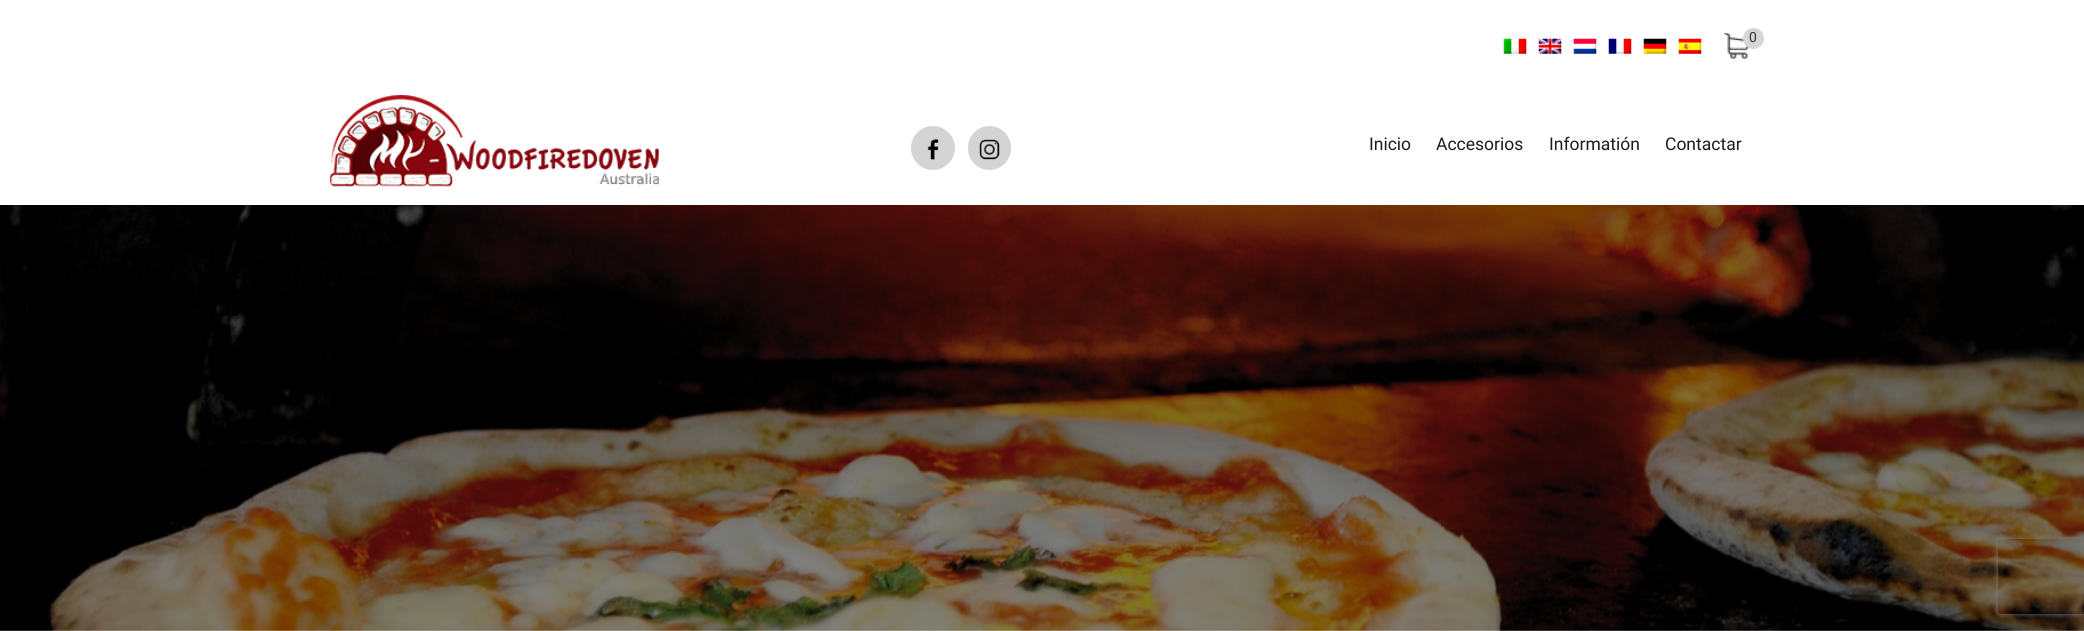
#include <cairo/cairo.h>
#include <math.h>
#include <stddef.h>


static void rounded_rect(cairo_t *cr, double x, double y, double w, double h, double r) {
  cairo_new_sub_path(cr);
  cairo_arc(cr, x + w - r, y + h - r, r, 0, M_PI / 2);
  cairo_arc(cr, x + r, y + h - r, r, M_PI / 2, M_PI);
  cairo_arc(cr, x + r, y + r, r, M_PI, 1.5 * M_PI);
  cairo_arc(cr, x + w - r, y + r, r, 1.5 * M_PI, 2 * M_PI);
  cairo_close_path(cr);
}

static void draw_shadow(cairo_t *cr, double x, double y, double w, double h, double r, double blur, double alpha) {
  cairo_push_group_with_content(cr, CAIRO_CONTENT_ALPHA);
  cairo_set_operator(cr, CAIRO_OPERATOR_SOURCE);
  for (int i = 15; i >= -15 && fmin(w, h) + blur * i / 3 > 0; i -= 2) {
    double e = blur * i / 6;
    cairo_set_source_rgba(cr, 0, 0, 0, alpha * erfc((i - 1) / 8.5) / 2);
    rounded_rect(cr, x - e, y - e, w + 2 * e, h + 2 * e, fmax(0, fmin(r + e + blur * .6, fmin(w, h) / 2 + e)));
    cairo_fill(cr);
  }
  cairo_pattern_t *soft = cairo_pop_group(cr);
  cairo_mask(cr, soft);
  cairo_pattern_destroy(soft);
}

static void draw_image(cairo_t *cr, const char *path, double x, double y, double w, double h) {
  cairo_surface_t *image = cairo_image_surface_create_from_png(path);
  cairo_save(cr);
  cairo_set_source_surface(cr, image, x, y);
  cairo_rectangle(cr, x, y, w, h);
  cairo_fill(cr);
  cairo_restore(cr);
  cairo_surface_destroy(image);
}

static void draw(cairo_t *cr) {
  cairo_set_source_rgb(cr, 1, 1, 1);
  cairo_paint(cr);
  draw_image(cr, "images/1.png", 1503, 38, 24, 16);
  draw_image(cr, "images/2.png", 1538, 38, 24, 16);
  draw_image(cr, "images/3.png", 1573, 38, 24, 16);
  draw_image(cr, "images/4.png", 1608, 38, 24, 16);
  draw_image(cr, "images/5.png", 1643, 38, 24, 16);
  draw_image(cr, "images/6.png", 1678, 38, 24, 16);
  draw_image(cr, "images/7.png", 1724, 33, 25, 26);
  cairo_set_source_rgb(cr, 214 / 255.0, 214 / 255.0, 214 / 255.0);
  cairo_arc(cr, 1753.5, 38.5, 10.5, 0, 2 * M_PI);
  cairo_fill(cr);
  draw_image(cr, "images/8.png", 330, 95, 329, 92);
  cairo_set_source_rgb(cr, 212 / 255.0, 212 / 255.0, 212 / 255.0);
  cairo_arc(cr, 933, 148, 22, 0, 2 * M_PI);
  cairo_fill(cr);
  draw_image(cr, "images/9.png", 927, 139, 12, 21);
  rounded_rect(cr, 968, 126, 43, 44, 21.5);
  cairo_fill(cr);
  draw_image(cr, "images/10.png", 979, 139, 21, 21);
  draw_image(cr, "images/11.png", 0, 205, 2084, 426);
  cairo_save(cr);
  cairo_set_fill_rule(cr, CAIRO_FILL_RULE_EVEN_ODD);
  cairo_new_path(cr);
  cairo_move_to(cr, 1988, 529);
  cairo_line_to(cr, 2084, 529);
  cairo_line_to(cr, 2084, 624);
  cairo_line_to(cr, 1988, 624);
  cairo_close_path(cr);
  cairo_move_to(cr, 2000.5, 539);
  cairo_line_to(cr, 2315.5, 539);
  cairo_curve_to(cr, 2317, 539, 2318, 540, 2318, 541.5);
  cairo_line_to(cr, 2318, 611.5);
  cairo_curve_to(cr, 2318, 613, 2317, 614, 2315.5, 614);
  cairo_line_to(cr, 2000.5, 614);
  cairo_curve_to(cr, 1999, 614, 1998, 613, 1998, 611.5);
  cairo_line_to(cr, 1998, 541.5);
  cairo_curve_to(cr, 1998, 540, 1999, 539, 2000.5, 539);
  cairo_close_path(cr);
  cairo_clip(cr);
  cairo_set_source_rgb(cr, 128 / 255.0, 128 / 255.0, 128 / 255.0);
  draw_shadow(cr, 1998, 539, 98, 75, 2.5, 3, 1);
  cairo_restore(cr);
  cairo_select_font_face(cr, "Roboto", CAIRO_FONT_SLANT_NORMAL, CAIRO_FONT_WEIGHT_NORMAL);
  cairo_set_font_size(cr, 14);
  cairo_set_source_rgb(cr, 51 / 255.0, 51 / 255.0, 51 / 255.0);
  cairo_move_to(cr, 1749, 42);
  cairo_show_text(cr, "0");
  cairo_set_font_size(cr, 17.5);
  cairo_set_source_rgb(cr, 28 / 255.0, 28 / 255.0, 28 / 255.0);
  cairo_move_to(cr, 1369, 150);
  cairo_show_text(cr, "Inicio");
  cairo_move_to(cr, 1436, 150);
  cairo_show_text(cr, "Accesorios");
  cairo_move_to(cr, 1549, 150);
  cairo_show_text(cr, "Informatión");
  cairo_move_to(cr, 1665, 150);
  cairo_show_text(cr, "Contactar");
}

int main(void) {
  cairo_surface_t *surface = cairo_image_surface_create(CAIRO_FORMAT_RGB24, 2084, 631);
  cairo_t *cr = cairo_create(surface);
  cairo_font_options_t *options = cairo_font_options_create();
  cairo_font_options_set_hint_metrics(options, CAIRO_HINT_METRICS_OFF);
  cairo_font_options_set_hint_style(options, CAIRO_HINT_STYLE_NONE);
  cairo_set_font_options(cr, options);
  cairo_set_miter_limit(cr, 4);
  draw(cr);
  cairo_surface_write_to_png(surface, "out.png");
  cairo_font_options_destroy(options);
  cairo_destroy(cr);
  cairo_surface_destroy(surface);
  return 0;
}
